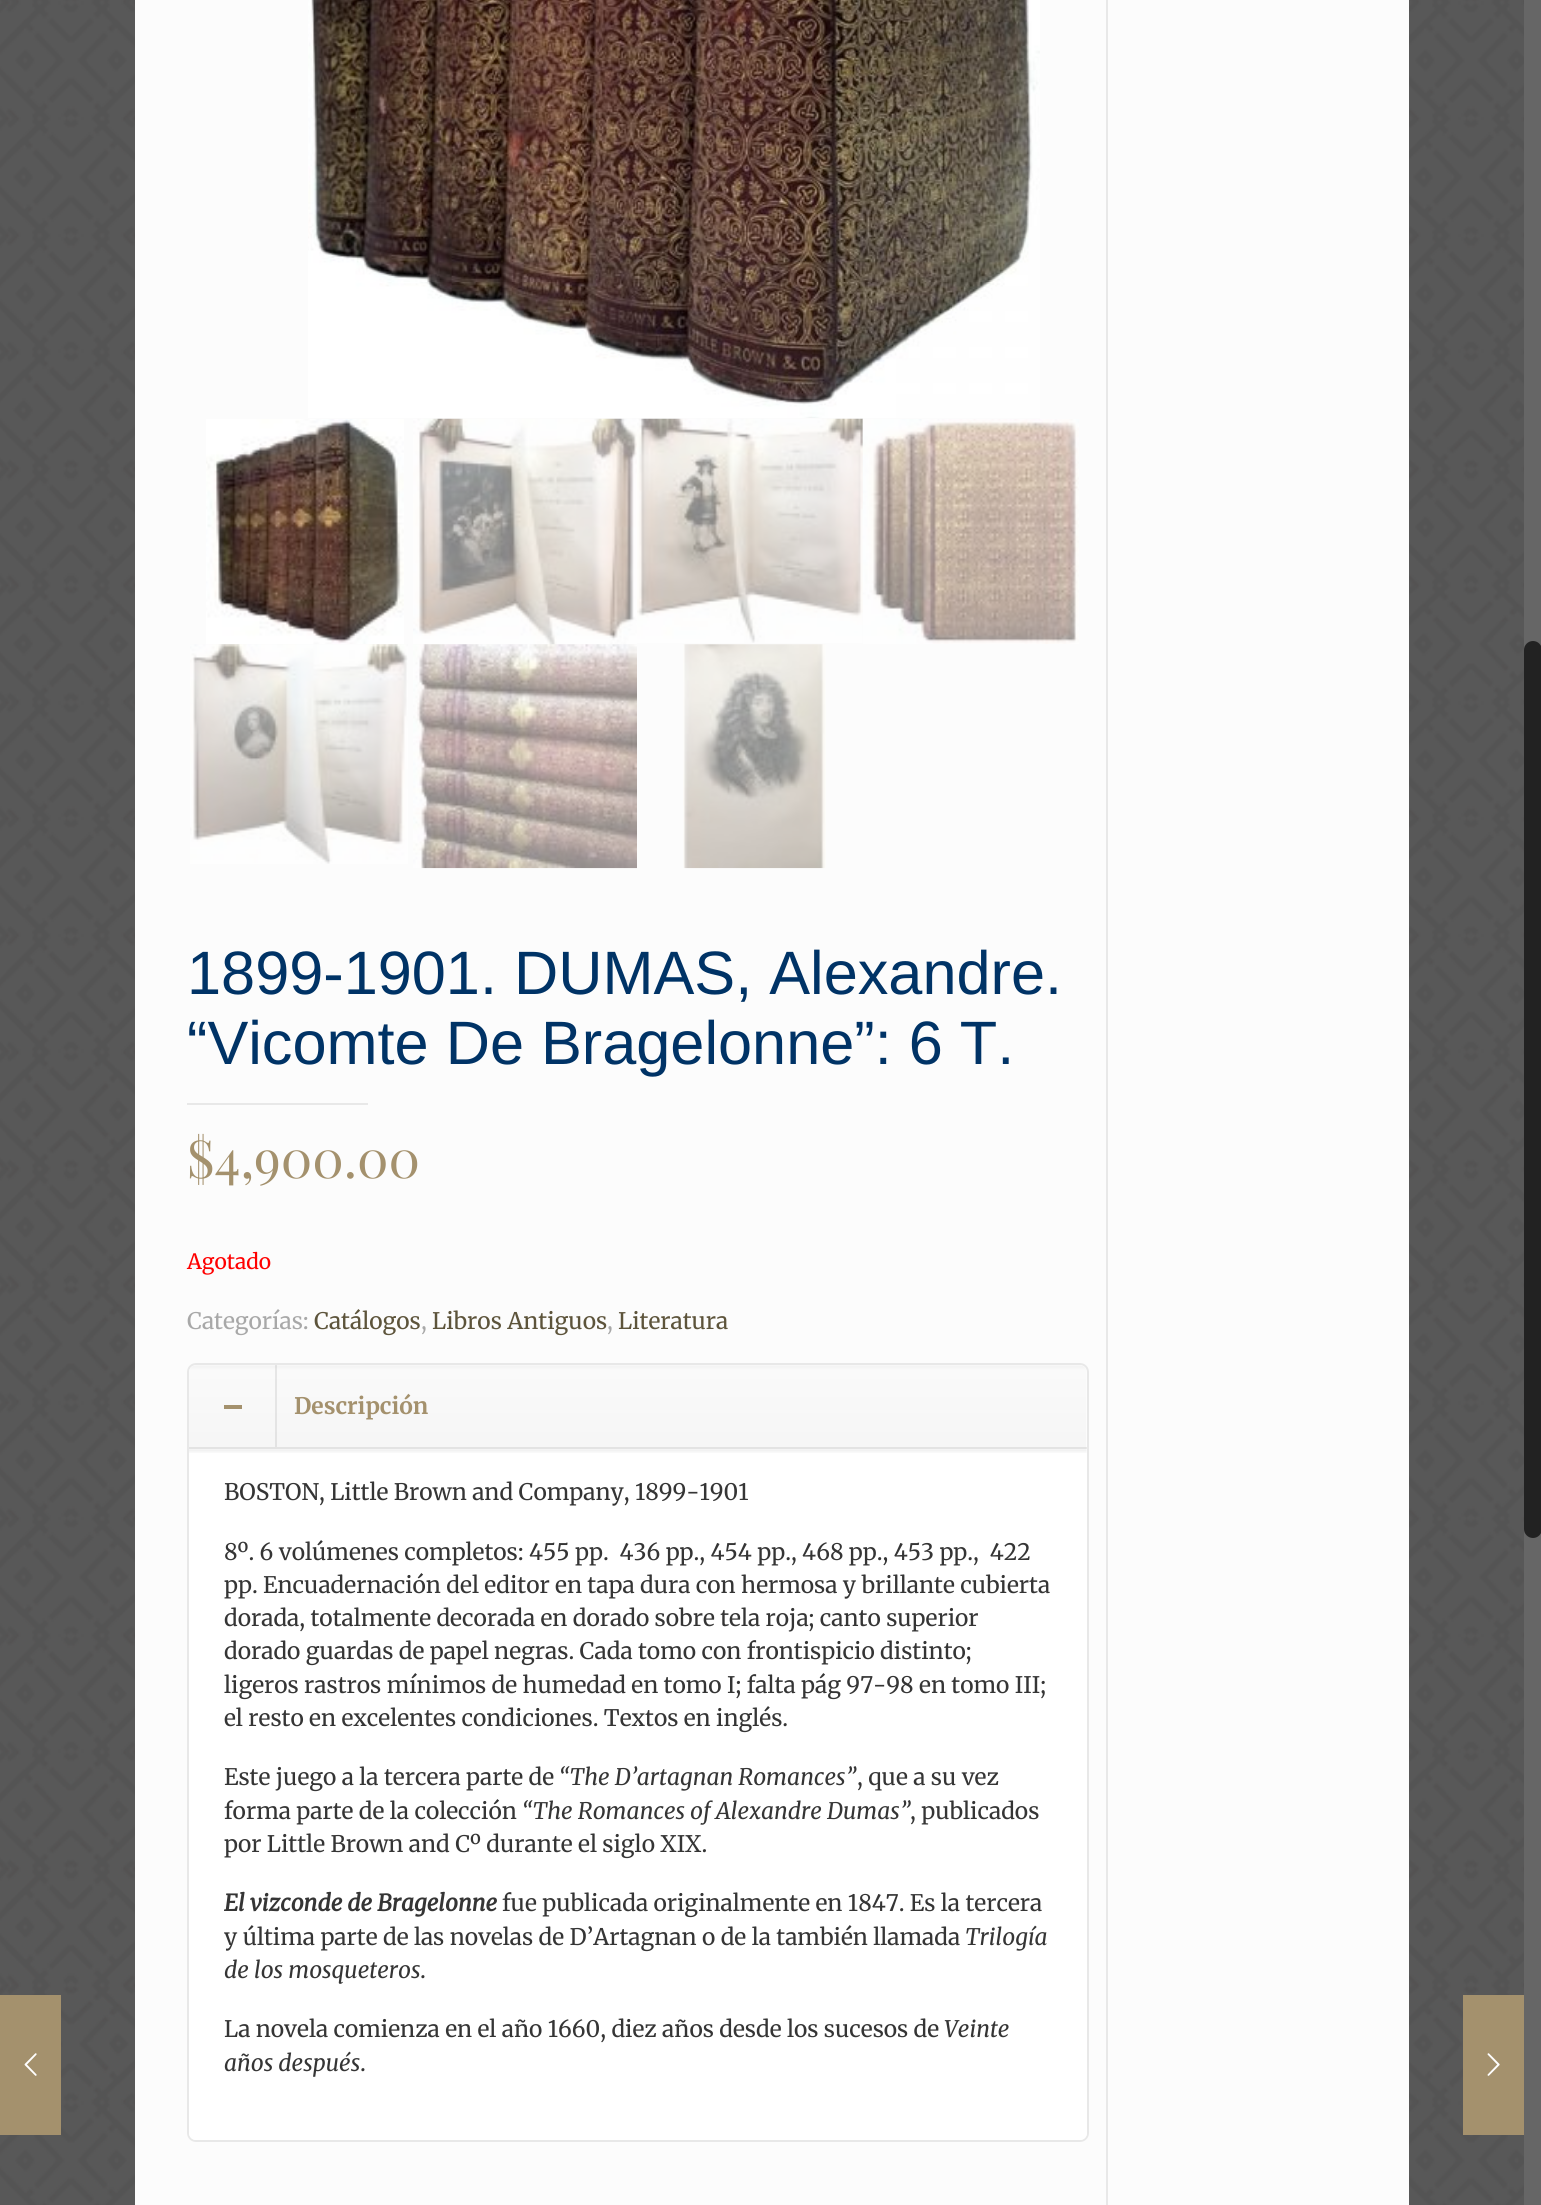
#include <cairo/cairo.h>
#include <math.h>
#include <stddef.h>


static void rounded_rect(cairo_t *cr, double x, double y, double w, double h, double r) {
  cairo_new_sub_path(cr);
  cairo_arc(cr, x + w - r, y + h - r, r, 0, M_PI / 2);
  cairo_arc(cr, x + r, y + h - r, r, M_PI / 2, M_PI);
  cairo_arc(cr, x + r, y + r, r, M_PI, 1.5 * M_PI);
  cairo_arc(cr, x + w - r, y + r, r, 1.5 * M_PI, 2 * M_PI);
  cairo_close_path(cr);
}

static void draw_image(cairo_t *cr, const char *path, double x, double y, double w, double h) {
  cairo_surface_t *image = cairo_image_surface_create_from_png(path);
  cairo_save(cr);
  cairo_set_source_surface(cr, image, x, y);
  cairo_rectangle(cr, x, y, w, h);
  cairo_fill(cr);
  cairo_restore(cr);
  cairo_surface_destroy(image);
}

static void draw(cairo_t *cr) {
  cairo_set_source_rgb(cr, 1, 1, 1);
  cairo_paint(cr);
  draw_image(cr, "images/1.png", 0, 0, 1524, 2205);
  cairo_set_source_rgb(cr, 164 / 255.0, 145 / 255.0, 109 / 255.0);
  cairo_rectangle(cr, 0, 1995, 61, 140);
  cairo_fill(cr);
  draw_image(cr, "images/2.png", 24, 2053, 13, 23);
  cairo_set_source_rgb(cr, 252 / 255.0, 252 / 255.0, 252 / 255.0);
  cairo_rectangle(cr, 135, 0, 1274, 2205);
  cairo_fill(cr);
  draw_image(cr, "images/3.png", 308, 0, 732, 418);
  draw_image(cr, "images/4.png", 206, 419, 198, 225);
  draw_image(cr, "images/5.png", 413, 418, 224, 227);
  draw_image(cr, "images/6.png", 637, 418, 226, 225);
  draw_image(cr, "images/7.png", 862, 419, 217, 225);
  draw_image(cr, "images/8.png", 190, 644, 218, 220);
  draw_image(cr, "images/9.png", 413, 644, 224, 225);
  draw_image(cr, "images/10.png", 683, 644, 143, 225);
  cairo_set_source_rgb(cr, 232 / 255.0, 232 / 255.0, 232 / 255.0);
  cairo_rectangle(cr, 187, 1103, 181, 2);
  cairo_fill(cr);
  rounded_rect(cr, 188, 1364, 900, 777, 8);
  cairo_stroke(cr);
  draw_image(cr, "images/11.png", 189, 1365, 897, 84);
  cairo_set_source_rgba(cr, 0, 0, 0, 0.08);
  cairo_rectangle(cr, 189, 1447, 898, 2);
  cairo_fill(cr);
  cairo_set_source_rgb(cr, 164 / 255.0, 145 / 255.0, 109 / 255.0);
  cairo_rectangle(cr, 224, 1405, 18, 4);
  cairo_fill(cr);
  cairo_set_source_rgba(cr, 0, 0, 0, 0.08);
  cairo_rectangle(cr, 275, 1365, 2, 82);
  cairo_fill(cr);
  cairo_set_source_rgb(cr, 1, 1, 1);
  cairo_new_path(cr);
  cairo_move_to(cr, 189, 1449);
  cairo_line_to(cr, 1087, 1449);
  cairo_line_to(cr, 1087, 2133);
  cairo_curve_to(cr, 1087, 2137, 1084, 2140, 1080, 2140);
  cairo_line_to(cr, 196, 2140);
  cairo_curve_to(cr, 192, 2140, 189, 2137, 189, 2133);
  cairo_close_path(cr);
  cairo_fill(cr);
  draw_image(cr, "images/12.png", 189, 1449, 898, 4);
  cairo_set_source_rgb(cr, 232 / 255.0, 232 / 255.0, 232 / 255.0);
  cairo_rectangle(cr, 1106, 0, 2, 2205);
  cairo_fill(cr);
  cairo_set_source_rgb(cr, 164 / 255.0, 145 / 255.0, 109 / 255.0);
  cairo_rectangle(cr, 1463, 1995, 61, 140);
  cairo_fill(cr);
  draw_image(cr, "images/13.png", 1487, 2053, 13, 23);
  cairo_set_source_rgb(cr, 102 / 255.0, 102 / 255.0, 102 / 255.0);
  cairo_rectangle(cr, 1524, 0, 17, 2205);
  cairo_fill(cr);
  cairo_set_source_rgb(cr, 34 / 255.0, 34 / 255.0, 34 / 255.0);
  rounded_rect(cr, 1524, 641, 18, 897, 9);
  cairo_fill(cr);
  cairo_select_font_face(cr, "Liberation Sans", CAIRO_FONT_SLANT_NORMAL, CAIRO_FONT_WEIGHT_NORMAL);
  cairo_set_font_size(cr, 61.25);
  cairo_set_source_rgb(cr, 0, 51 / 255.0, 102 / 255.0);
  cairo_move_to(cr, 187, 994);
  cairo_show_text(cr, "1899-1901. DUMAS, Alexandre.");
  cairo_move_to(cr, 187, 1064);
  cairo_show_text(cr, "“Vicomte De Bragelonne”: 6 T.");
  cairo_select_font_face(cr, "Playfair Display", CAIRO_FONT_SLANT_NORMAL, CAIRO_FONT_WEIGHT_NORMAL);
  cairo_set_font_size(cr, 52.5);
  cairo_set_source_rgb(cr, 164 / 255.0, 145 / 255.0, 109 / 255.0);
  cairo_move_to(cr, 187, 1178);
  cairo_show_text(cr, "$4,900.00");
  cairo_select_font_face(cr, "Merriweather", CAIRO_FONT_SLANT_NORMAL, CAIRO_FONT_WEIGHT_NORMAL);
  cairo_set_font_size(cr, 21);
  cairo_set_source_rgb(cr, 1, 0, 0);
  cairo_move_to(cr, 187, 1269);
  cairo_show_text(cr, "Agotado");
  cairo_set_font_size(cr, 22.75);
  cairo_set_source_rgb(cr, 168 / 255.0, 168 / 255.0, 168 / 255.0);
  cairo_move_to(cr, 187, 1329);
  cairo_show_text(cr, "Categorías:");
  cairo_set_source_rgb(cr, 93 / 255.0, 84 / 255.0, 59 / 255.0);
  cairo_move_to(cr, 314, 1329);
  cairo_show_text(cr, "Catálogos");
  cairo_set_source_rgb(cr, 168 / 255.0, 168 / 255.0, 168 / 255.0);
  cairo_move_to(cr, 421, 1329);
  cairo_show_text(cr, ",");
  cairo_set_source_rgb(cr, 93 / 255.0, 84 / 255.0, 59 / 255.0);
  cairo_move_to(cr, 432, 1329);
  cairo_show_text(cr, "Libros Antiguos");
  cairo_set_source_rgb(cr, 168 / 255.0, 168 / 255.0, 168 / 255.0);
  cairo_move_to(cr, 607, 1329);
  cairo_show_text(cr, ",");
  cairo_set_source_rgb(cr, 93 / 255.0, 84 / 255.0, 59 / 255.0);
  cairo_move_to(cr, 618, 1329);
  cairo_show_text(cr, "Literatura");
  cairo_select_font_face(cr, "Merriweather", CAIRO_FONT_SLANT_NORMAL, CAIRO_FONT_WEIGHT_BOLD);
  cairo_set_source_rgb(cr, 164 / 255.0, 145 / 255.0, 109 / 255.0);
  cairo_move_to(cr, 294, 1414);
  cairo_show_text(cr, "Descripción");
  cairo_select_font_face(cr, "Merriweather", CAIRO_FONT_SLANT_NORMAL, CAIRO_FONT_WEIGHT_NORMAL);
  cairo_set_source_rgb(cr, 53 / 255.0, 53 / 255.0, 53 / 255.0);
  cairo_move_to(cr, 224, 1500);
  cairo_show_text(cr, "BOSTON, Little Brown and Company, 1899-1901");
  cairo_move_to(cr, 224, 1560);
  cairo_show_text(cr, "8º. 6 volúmenes completos: 455 pp.  436 pp., 454 pp., 468 pp., 453 pp.,  422");
  cairo_move_to(cr, 224, 1593);
  cairo_show_text(cr, "pp. Encuadernación del editor en tapa dura con hermosa y brillante cubierta");
  cairo_move_to(cr, 224, 1626);
  cairo_show_text(cr, "dorada, totalmente decorada en dorado sobre tela roja; canto superior");
  cairo_move_to(cr, 224, 1659);
  cairo_show_text(cr, "dorado guardas de papel negras. Cada tomo con frontispicio distinto;");
  cairo_move_to(cr, 224, 1693);
  cairo_show_text(cr, "ligeros rastros mínimos de humedad en tomo I; falta pág 97-98 en tomo III;");
  cairo_move_to(cr, 224, 1726);
  cairo_show_text(cr, "el resto en excelentes condiciones. Textos en inglés.");
  cairo_move_to(cr, 224, 1785);
  cairo_show_text(cr, "Este juego a la tercera parte de");
  cairo_select_font_face(cr, "Merriweather Light", CAIRO_FONT_SLANT_ITALIC, CAIRO_FONT_WEIGHT_NORMAL);
  cairo_move_to(cr, 559, 1785);
  cairo_show_text(cr, "“The D’artagnan Romances”");
  cairo_select_font_face(cr, "Merriweather", CAIRO_FONT_SLANT_NORMAL, CAIRO_FONT_WEIGHT_NORMAL);
  cairo_move_to(cr, 857, 1785);
  cairo_show_text(cr, ", que a su vez");
  cairo_move_to(cr, 224, 1819);
  cairo_show_text(cr, "forma parte de la colección");
  cairo_select_font_face(cr, "Merriweather Light", CAIRO_FONT_SLANT_ITALIC, CAIRO_FONT_WEIGHT_NORMAL);
  cairo_move_to(cr, 522, 1819);
  cairo_show_text(cr, "“The Romances of Alexandre Dumas”");
  cairo_select_font_face(cr, "Merriweather", CAIRO_FONT_SLANT_NORMAL, CAIRO_FONT_WEIGHT_NORMAL);
  cairo_move_to(cr, 910, 1819);
  cairo_show_text(cr, ", publicados");
  cairo_move_to(cr, 224, 1852);
  cairo_show_text(cr, "por Little Brown and Cº durante el siglo XIX.");
  cairo_select_font_face(cr, "Merriweather", CAIRO_FONT_SLANT_ITALIC, CAIRO_FONT_WEIGHT_BOLD);
  cairo_move_to(cr, 224, 1911);
  cairo_show_text(cr, "El vizconde de Bragelonne");
  cairo_select_font_face(cr, "Merriweather", CAIRO_FONT_SLANT_NORMAL, CAIRO_FONT_WEIGHT_NORMAL);
  cairo_move_to(cr, 502, 1911);
  cairo_show_text(cr, "fue publicada originalmente en 1847. Es la tercera");
  cairo_move_to(cr, 224, 1945);
  cairo_show_text(cr, "y última parte de las novelas de D’Artagnan o de la también llamada");
  cairo_select_font_face(cr, "Merriweather Light", CAIRO_FONT_SLANT_ITALIC, CAIRO_FONT_WEIGHT_NORMAL);
  cairo_move_to(cr, 965, 1945);
  cairo_show_text(cr, "Trilogía");
  cairo_move_to(cr, 224, 1978);
  cairo_show_text(cr, "de los mosqueteros");
  cairo_select_font_face(cr, "Merriweather", CAIRO_FONT_SLANT_NORMAL, CAIRO_FONT_WEIGHT_NORMAL);
  cairo_move_to(cr, 420, 1978);
  cairo_show_text(cr, ".");
  cairo_move_to(cr, 224, 2037);
  cairo_show_text(cr, "La novela comienza en el año 1660, diez años desde los sucesos de");
  cairo_select_font_face(cr, "Merriweather Light", CAIRO_FONT_SLANT_ITALIC, CAIRO_FONT_WEIGHT_NORMAL);
  cairo_move_to(cr, 944, 2037);
  cairo_show_text(cr, "Veinte");
  cairo_move_to(cr, 224, 2071);
  cairo_show_text(cr, "años después");
  cairo_select_font_face(cr, "Merriweather", CAIRO_FONT_SLANT_NORMAL, CAIRO_FONT_WEIGHT_NORMAL);
  cairo_move_to(cr, 360, 2071);
  cairo_show_text(cr, ".");
}

int main(void) {
  cairo_surface_t *surface = cairo_image_surface_create(CAIRO_FORMAT_RGB24, 1541, 2205);
  cairo_t *cr = cairo_create(surface);
  cairo_font_options_t *options = cairo_font_options_create();
  cairo_font_options_set_hint_metrics(options, CAIRO_HINT_METRICS_OFF);
  cairo_font_options_set_hint_style(options, CAIRO_HINT_STYLE_NONE);
  cairo_set_font_options(cr, options);
  cairo_set_miter_limit(cr, 4);
  draw(cr);
  cairo_surface_write_to_png(surface, "out.png");
  cairo_font_options_destroy(options);
  cairo_destroy(cr);
  cairo_surface_destroy(surface);
  return 0;
}
